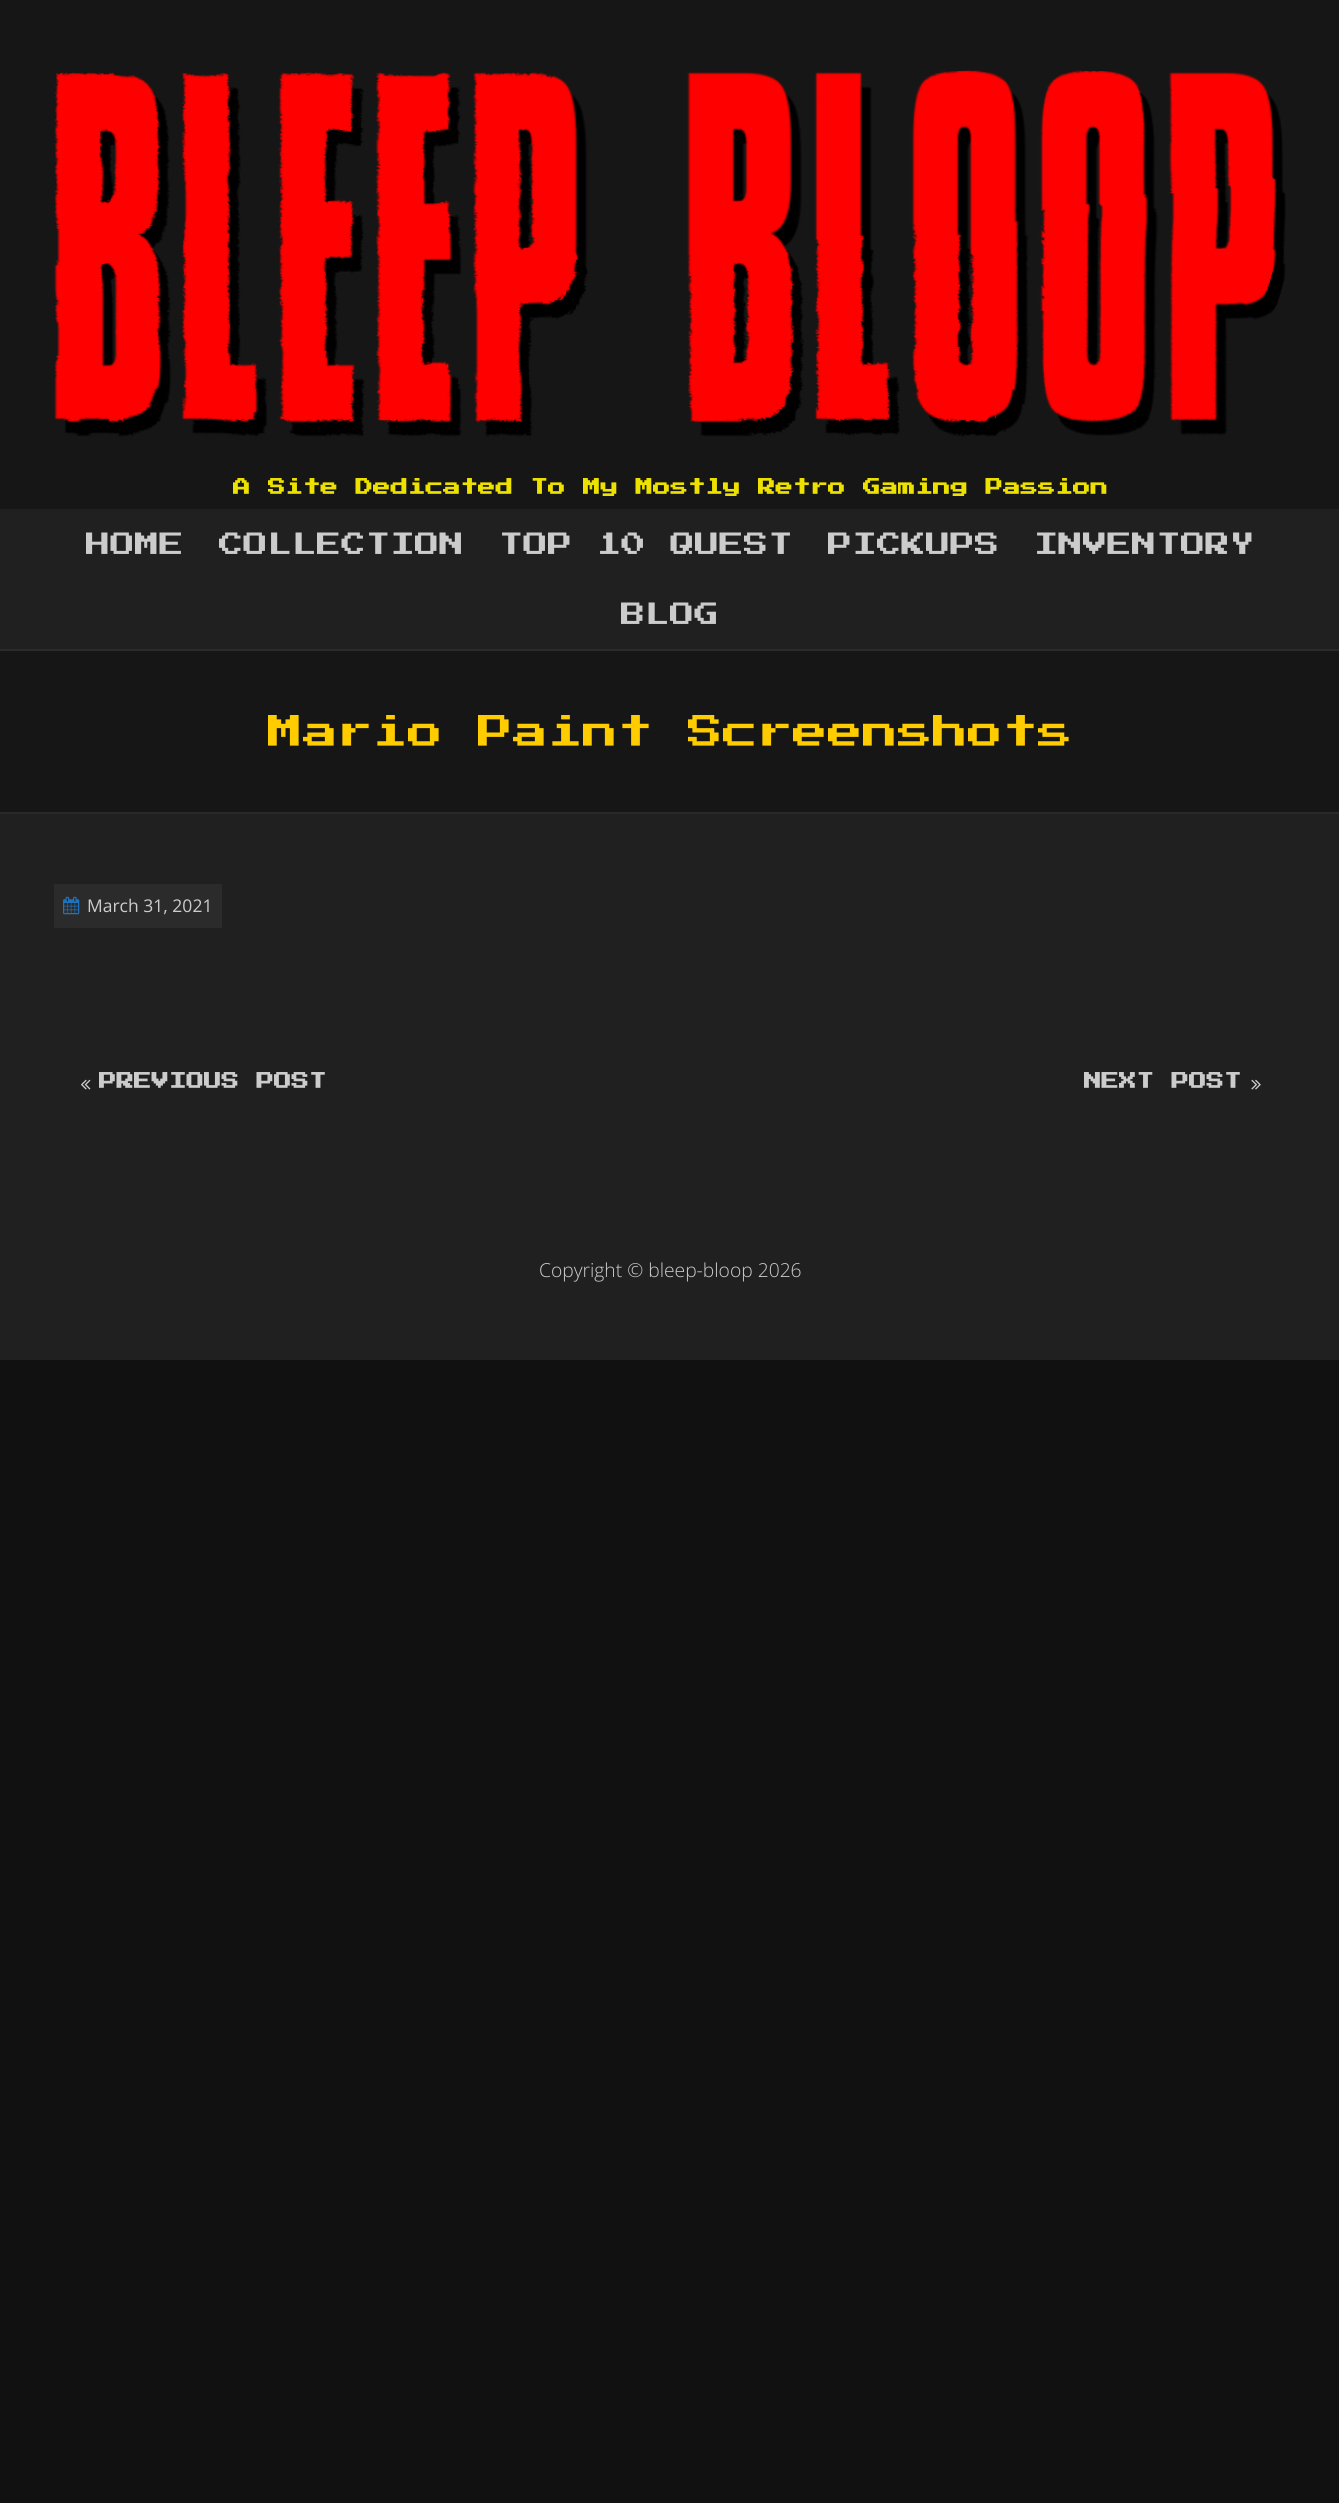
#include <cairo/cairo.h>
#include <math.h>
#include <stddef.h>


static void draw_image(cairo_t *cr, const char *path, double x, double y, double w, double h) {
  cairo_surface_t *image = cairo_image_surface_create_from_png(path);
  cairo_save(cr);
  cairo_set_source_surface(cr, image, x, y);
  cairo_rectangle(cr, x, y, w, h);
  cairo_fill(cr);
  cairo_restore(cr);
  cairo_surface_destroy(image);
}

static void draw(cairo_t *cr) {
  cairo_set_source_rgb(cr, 17 / 255.0, 17 / 255.0, 17 / 255.0);
  cairo_paint(cr);
  cairo_set_source_rgb(cr, 32 / 255.0, 32 / 255.0, 32 / 255.0);
  cairo_rectangle(cr, 0, 509, 1339, 851);
  cairo_fill(cr);
  cairo_set_source_rgb(cr, 22 / 255.0, 22 / 255.0, 22 / 255.0);
  cairo_rectangle(cr, 0, 0, 1339, 509);
  cairo_fill(cr);
  draw_image(cr, "images/1.png", 54, 70, 1232, 367);
  cairo_set_source_rgb(cr, 43 / 255.0, 43 / 255.0, 43 / 255.0);
  cairo_rectangle(cr, 0, 649, 1339, 2);
  cairo_fill(cr);
  cairo_set_source_rgb(cr, 22 / 255.0, 22 / 255.0, 22 / 255.0);
  cairo_rectangle(cr, 0, 651, 1339, 161);
  cairo_fill(cr);
  cairo_set_source_rgb(cr, 41 / 255.0, 41 / 255.0, 41 / 255.0);
  cairo_rectangle(cr, 0, 812, 1339, 2);
  cairo_fill(cr);
  cairo_set_source_rgb(cr, 43 / 255.0, 43 / 255.0, 43 / 255.0);
  cairo_rectangle(cr, 54, 884, 168, 44);
  cairo_fill(cr);
  draw_image(cr, "images/2.png", 63, 896, 17, 19);
  draw_image(cr, "images/3.png", 81, 1079, 10, 11);
  draw_image(cr, "images/4.png", 1251, 1079, 10, 11);
  cairo_select_font_face(cr, "Press Start 2P", CAIRO_FONT_SLANT_NORMAL, CAIRO_FONT_WEIGHT_BOLD);
  cairo_set_font_size(cr, 17.5);
  cairo_set_source_rgb(cr, 237 / 255.0, 225 / 255.0, 0);
  cairo_move_to(cr, 233, 496);
  cairo_show_text(cr, "A Site Dedicated To My Mostly Retro Gaming Passion");
  cairo_select_font_face(cr, "Press Start 2P", CAIRO_FONT_SLANT_NORMAL, CAIRO_FONT_WEIGHT_NORMAL);
  cairo_set_font_size(cr, 24.5);
  cairo_set_source_rgb(cr, 204 / 255.0, 204 / 255.0, 204 / 255.0);
  cairo_move_to(cr, 86, 557);
  cairo_show_text(cr, "HOME");
  cairo_move_to(cr, 219, 557);
  cairo_show_text(cr, "COLLECTION");
  cairo_move_to(cr, 499, 557);
  cairo_show_text(cr, "TOP 10 QUEST");
  cairo_move_to(cr, 828, 557);
  cairo_show_text(cr, "PICKUPS");
  cairo_move_to(cr, 1034, 557);
  cairo_show_text(cr, "INVENTORY");
  cairo_move_to(cr, 621, 627);
  cairo_show_text(cr, "BLOG");
  cairo_set_font_size(cr, 35);
  cairo_set_source_rgb(cr, 1, 204 / 255.0, 0);
  cairo_move_to(cr, 268, 750);
  cairo_show_text(cr, "Mario Paint Screenshots");
  cairo_select_font_face(cr, "Open Sans", CAIRO_FONT_SLANT_NORMAL, CAIRO_FONT_WEIGHT_NORMAL);
  cairo_set_font_size(cr, 17.5);
  cairo_set_source_rgb(cr, 204 / 255.0, 204 / 255.0, 204 / 255.0);
  cairo_move_to(cr, 87, 912);
  cairo_show_text(cr, "March 31, 2021");
  cairo_select_font_face(cr, "Press Start 2P", CAIRO_FONT_SLANT_NORMAL, CAIRO_FONT_WEIGHT_BOLD);
  cairo_move_to(cr, 99, 1090);
  cairo_show_text(cr, "PREVIOUS POST");
  cairo_move_to(cr, 1084, 1090);
  cairo_show_text(cr, "NEXT POST");
  cairo_select_font_face(cr, "Open Sans Light", CAIRO_FONT_SLANT_NORMAL, CAIRO_FONT_WEIGHT_NORMAL);
  cairo_set_font_size(cr, 19.25);
  cairo_move_to(cr, 539, 1277);
  cairo_show_text(cr, "Copyright © bleep-bloop 2026");
}

int main(void) {
  cairo_surface_t *surface = cairo_image_surface_create(CAIRO_FORMAT_RGB24, 1339, 2503);
  cairo_t *cr = cairo_create(surface);
  cairo_font_options_t *options = cairo_font_options_create();
  cairo_font_options_set_hint_metrics(options, CAIRO_HINT_METRICS_OFF);
  cairo_font_options_set_hint_style(options, CAIRO_HINT_STYLE_NONE);
  cairo_set_font_options(cr, options);
  cairo_set_miter_limit(cr, 4);
  draw(cr);
  cairo_surface_write_to_png(surface, "out.png");
  cairo_font_options_destroy(options);
  cairo_destroy(cr);
  cairo_surface_destroy(surface);
  return 0;
}
